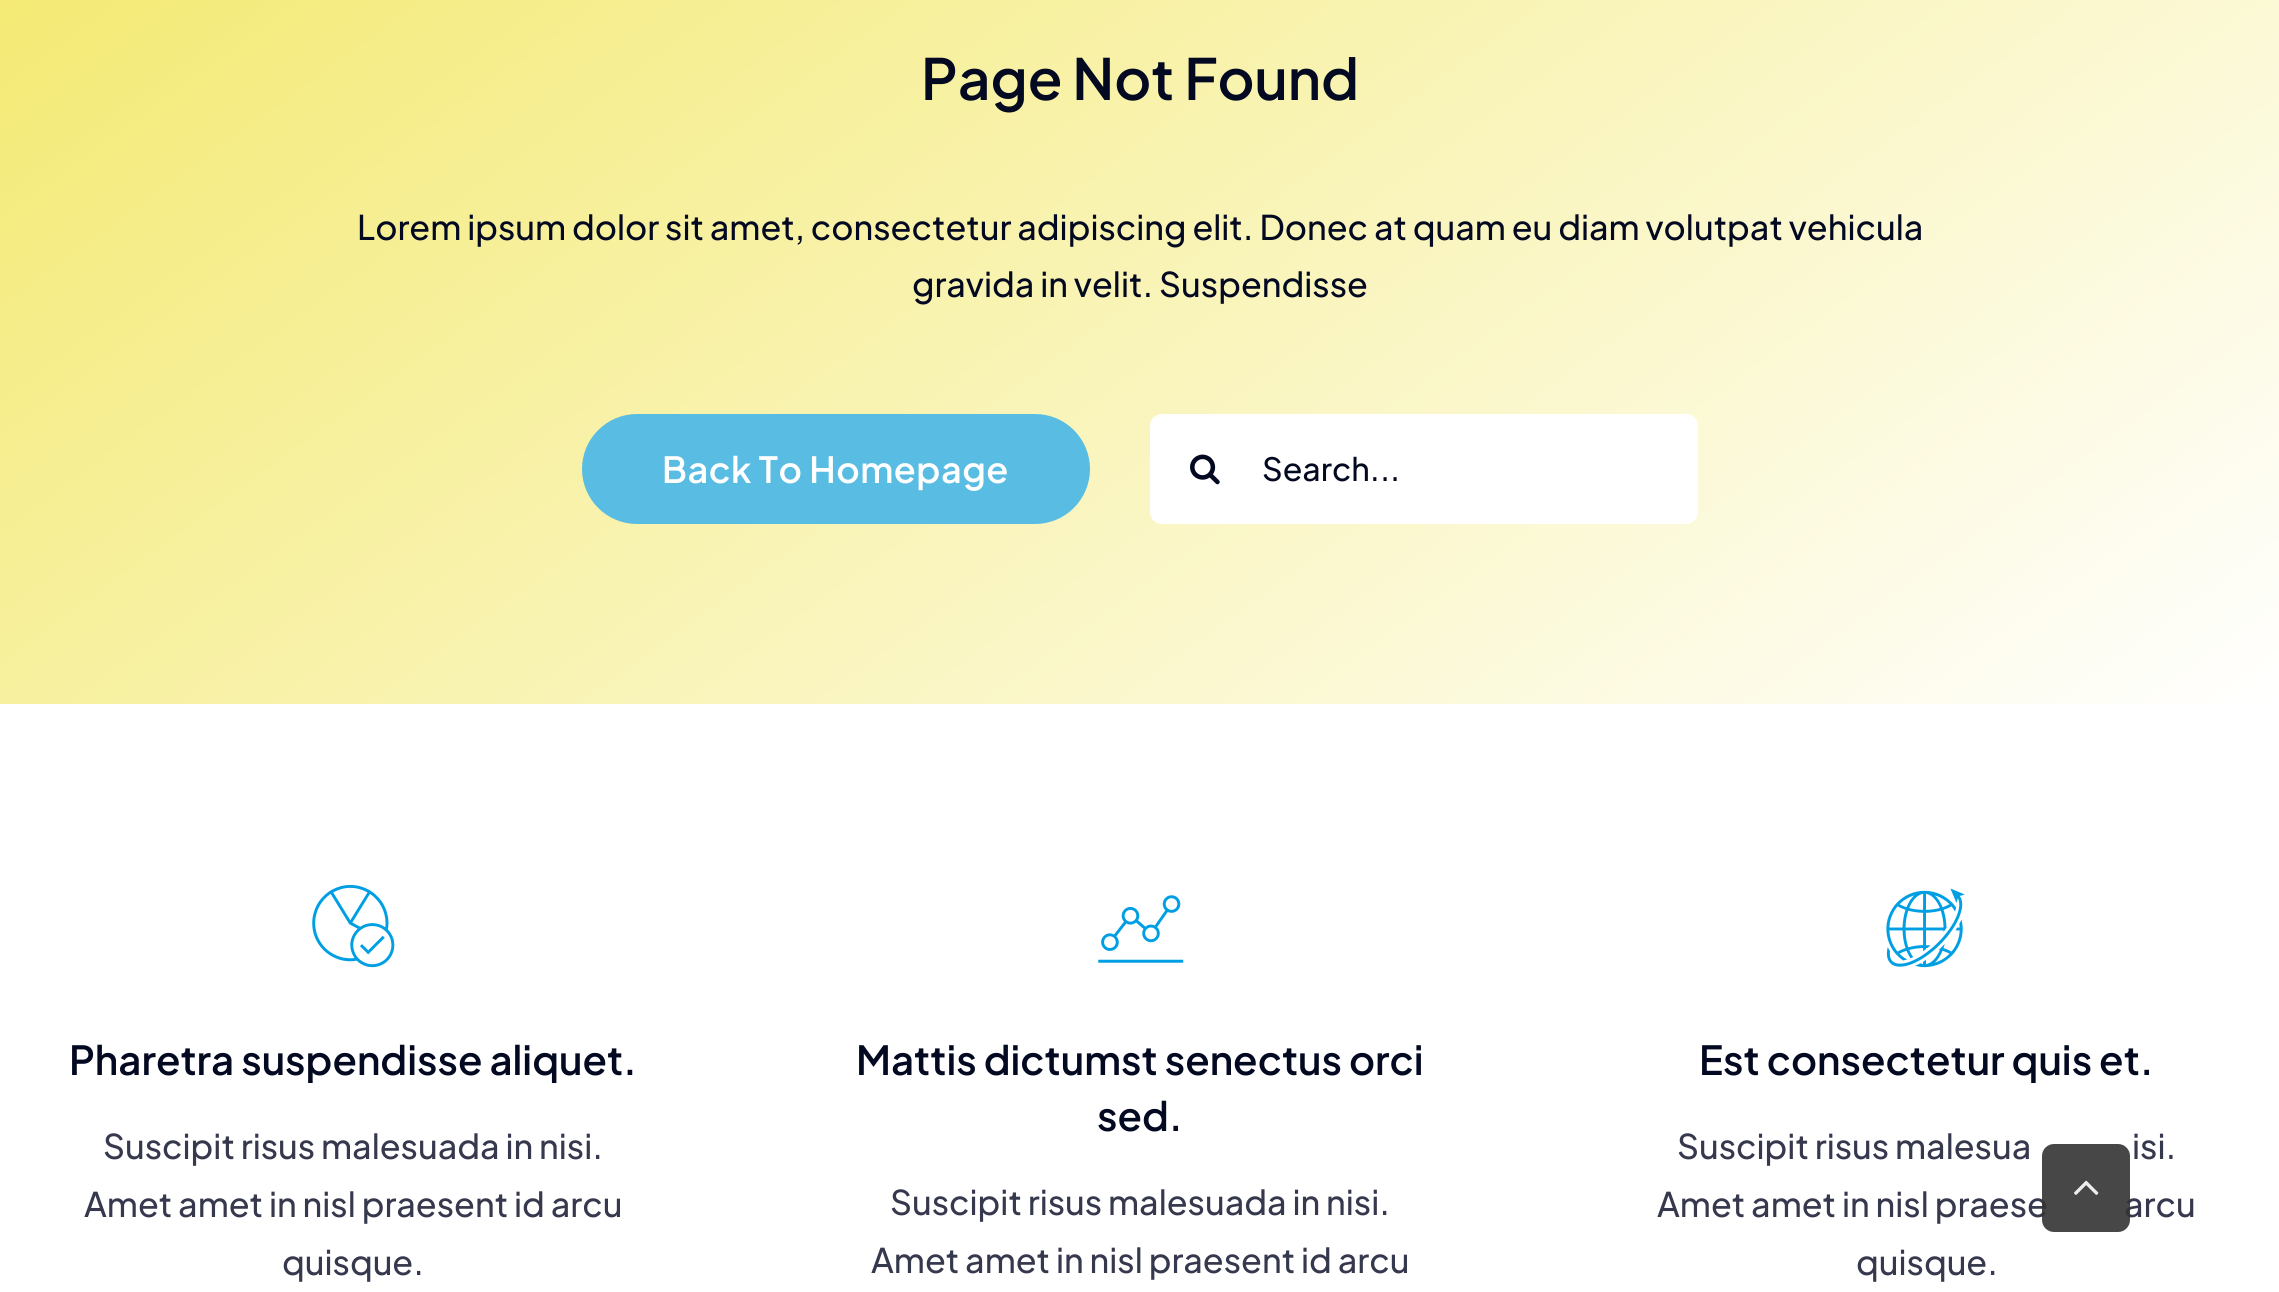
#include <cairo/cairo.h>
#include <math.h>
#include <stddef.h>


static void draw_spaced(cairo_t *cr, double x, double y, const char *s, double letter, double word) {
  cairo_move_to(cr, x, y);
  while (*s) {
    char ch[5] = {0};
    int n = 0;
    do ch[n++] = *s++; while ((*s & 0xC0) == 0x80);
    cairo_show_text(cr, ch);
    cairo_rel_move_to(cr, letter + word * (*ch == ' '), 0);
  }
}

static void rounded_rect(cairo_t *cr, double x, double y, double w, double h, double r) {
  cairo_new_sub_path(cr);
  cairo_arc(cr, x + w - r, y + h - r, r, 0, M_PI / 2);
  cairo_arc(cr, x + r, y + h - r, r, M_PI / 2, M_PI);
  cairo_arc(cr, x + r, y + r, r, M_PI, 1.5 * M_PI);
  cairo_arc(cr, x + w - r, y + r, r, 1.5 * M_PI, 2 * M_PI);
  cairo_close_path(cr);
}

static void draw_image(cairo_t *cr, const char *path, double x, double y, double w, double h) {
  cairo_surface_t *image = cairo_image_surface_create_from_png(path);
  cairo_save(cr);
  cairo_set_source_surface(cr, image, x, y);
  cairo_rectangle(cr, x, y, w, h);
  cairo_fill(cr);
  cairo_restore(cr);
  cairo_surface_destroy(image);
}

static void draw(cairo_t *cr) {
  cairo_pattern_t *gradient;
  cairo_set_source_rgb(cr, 1, 1, 1);
  cairo_paint(cr);
  gradient = cairo_pattern_create_linear(454, -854, 1826, 1034);
  cairo_pattern_add_color_stop_rgba(gradient, 0, 241 / 255.0, 229 / 255.0, 86 / 255.0, 1);
  cairo_pattern_add_color_stop_rgba(gradient, 1, 1, 1, 1, 1);
  cairo_set_source(cr, gradient);
  cairo_pattern_destroy(gradient);
  cairo_rectangle(cr, 0, 0, 2279, 704);
  cairo_fill(cr);
  cairo_set_source_rgb(cr, 89 / 255.0, 188 / 255.0, 226 / 255.0);
  rounded_rect(cr, 582, 414, 508, 110, 55);
  cairo_fill(cr);
  cairo_set_source_rgb(cr, 1, 1, 1);
  rounded_rect(cr, 1151, 415, 546, 108, 11);
  cairo_fill_preserve(cr);
  cairo_stroke(cr);
  draw_image(cr, "images/1.png", 1190, 454, 30, 31);
  draw_image(cr, "images/2.png", 312, 884, 83, 84);
  draw_image(cr, "images/3.png", 1098, 895, 86, 68);
  draw_image(cr, "images/4.png", 1886, 888, 79, 80);
  cairo_select_font_face(cr, "Plus Jakarta Sans SemiBold", CAIRO_FONT_SLANT_NORMAL, CAIRO_FONT_WEIGHT_NORMAL);
  cairo_set_font_size(cr, 56.75);
  cairo_set_source_rgb(cr, 4 / 255.0, 9 / 255.0, 34 / 255.0);
  cairo_move_to(cr, 921, 100);
  cairo_show_text(cr, "Page Not Found");
  cairo_select_font_face(cr, "Plus Jakarta Sans Medium", CAIRO_FONT_SLANT_NORMAL, CAIRO_FONT_WEIGHT_NORMAL);
  cairo_set_font_size(cr, 34);
  cairo_move_to(cr, 357, 240);
  cairo_show_text(cr, "Lorem ipsum dolor sit amet, consectetur adipiscing elit. Donec at quam eu diam volutpat vehicula");
  cairo_move_to(cr, 912, 297);
  cairo_show_text(cr, "gravida in velit. Suspendisse");
  cairo_select_font_face(cr, "Plus Jakarta Sans SemiBold", CAIRO_FONT_SLANT_NORMAL, CAIRO_FONT_WEIGHT_NORMAL);
  cairo_set_font_size(cr, 36);
  cairo_set_source_rgb(cr, 1, 1, 1);
  draw_spaced(cr, 662, 483, "Back To Homepage", 0.5, 0);
  cairo_select_font_face(cr, "Plus Jakarta Sans Medium", CAIRO_FONT_SLANT_NORMAL, CAIRO_FONT_WEIGHT_NORMAL);
  cairo_set_font_size(cr, 32);
  cairo_set_source_rgb(cr, 4 / 255.0, 9 / 255.0, 34 / 255.0);
  cairo_move_to(cr, 1262, 481);
  cairo_show_text(cr, "Search...");
  cairo_select_font_face(cr, "Plus Jakarta Sans SemiBold", CAIRO_FONT_SLANT_NORMAL, CAIRO_FONT_WEIGHT_NORMAL);
  cairo_set_font_size(cr, 40);
  cairo_move_to(cr, 69, 1075);
  cairo_show_text(cr, "Pharetra suspendisse aliquet.");
  cairo_select_font_face(cr, "Plus Jakarta Sans Medium", CAIRO_FONT_SLANT_NORMAL, CAIRO_FONT_WEIGHT_NORMAL);
  cairo_set_font_size(cr, 34);
  cairo_set_source_rgb(cr, 54 / 255.0, 57 / 255.0, 77 / 255.0);
  cairo_move_to(cr, 103, 1159);
  cairo_show_text(cr, "Suscipit risus malesuada in nisi.");
  cairo_move_to(cr, 84, 1217);
  cairo_show_text(cr, "Amet amet in nisl praesent id arcu");
  cairo_move_to(cr, 282, 1275);
  cairo_show_text(cr, "quisque.");
  cairo_select_font_face(cr, "Plus Jakarta Sans SemiBold", CAIRO_FONT_SLANT_NORMAL, CAIRO_FONT_WEIGHT_NORMAL);
  cairo_set_font_size(cr, 40);
  cairo_set_source_rgb(cr, 4 / 255.0, 9 / 255.0, 34 / 255.0);
  cairo_move_to(cr, 856, 1075);
  cairo_show_text(cr, "Mattis dictumst senectus orci");
  cairo_move_to(cr, 1097, 1131);
  cairo_show_text(cr, "sed.");
  cairo_select_font_face(cr, "Plus Jakarta Sans Medium", CAIRO_FONT_SLANT_NORMAL, CAIRO_FONT_WEIGHT_NORMAL);
  cairo_set_font_size(cr, 34);
  cairo_set_source_rgb(cr, 54 / 255.0, 57 / 255.0, 77 / 255.0);
  cairo_move_to(cr, 890, 1215);
  cairo_show_text(cr, "Suscipit risus malesuada in nisi.");
  cairo_move_to(cr, 871, 1273);
  cairo_show_text(cr, "Amet amet in nisl praesent id arcu");
  cairo_select_font_face(cr, "Plus Jakarta Sans SemiBold", CAIRO_FONT_SLANT_NORMAL, CAIRO_FONT_WEIGHT_NORMAL);
  cairo_set_font_size(cr, 40);
  cairo_set_source_rgb(cr, 4 / 255.0, 9 / 255.0, 34 / 255.0);
  cairo_move_to(cr, 1699, 1075);
  cairo_show_text(cr, "Est consectetur quis et.");
  cairo_select_font_face(cr, "Plus Jakarta Sans Medium", CAIRO_FONT_SLANT_NORMAL, CAIRO_FONT_WEIGHT_NORMAL);
  cairo_set_font_size(cr, 34);
  cairo_set_source_rgb(cr, 54 / 255.0, 57 / 255.0, 77 / 255.0);
  cairo_move_to(cr, 1677, 1159);
  cairo_show_text(cr, "Suscipit risus malesua");
  cairo_move_to(cr, 2132, 1159);
  cairo_show_text(cr, "isi.");
  cairo_move_to(cr, 1657, 1217);
  cairo_show_text(cr, "Amet amet in nisl praese");
  cairo_move_to(cr, 2124, 1217);
  cairo_show_text(cr, "arcu");
  cairo_move_to(cr, 1856, 1275);
  cairo_show_text(cr, "quisque.");
  cairo_set_source_rgba(cr, 51 / 255.0, 51 / 255.0, 51 / 255.0, 0.9);
  rounded_rect(cr, 2042, 1144, 88, 88, 12);
  cairo_fill(cr);
  draw_image(cr, "images/5.png", 2074, 1180, 25, 15);
}

int main(void) {
  cairo_surface_t *surface = cairo_image_surface_create(CAIRO_FORMAT_RGB24, 2279, 1292);
  cairo_t *cr = cairo_create(surface);
  cairo_font_options_t *options = cairo_font_options_create();
  cairo_font_options_set_hint_metrics(options, CAIRO_HINT_METRICS_OFF);
  cairo_font_options_set_hint_style(options, CAIRO_HINT_STYLE_NONE);
  cairo_set_font_options(cr, options);
  cairo_set_miter_limit(cr, 4);
  draw(cr);
  cairo_surface_write_to_png(surface, "out.png");
  cairo_font_options_destroy(options);
  cairo_destroy(cr);
  cairo_surface_destroy(surface);
  return 0;
}
